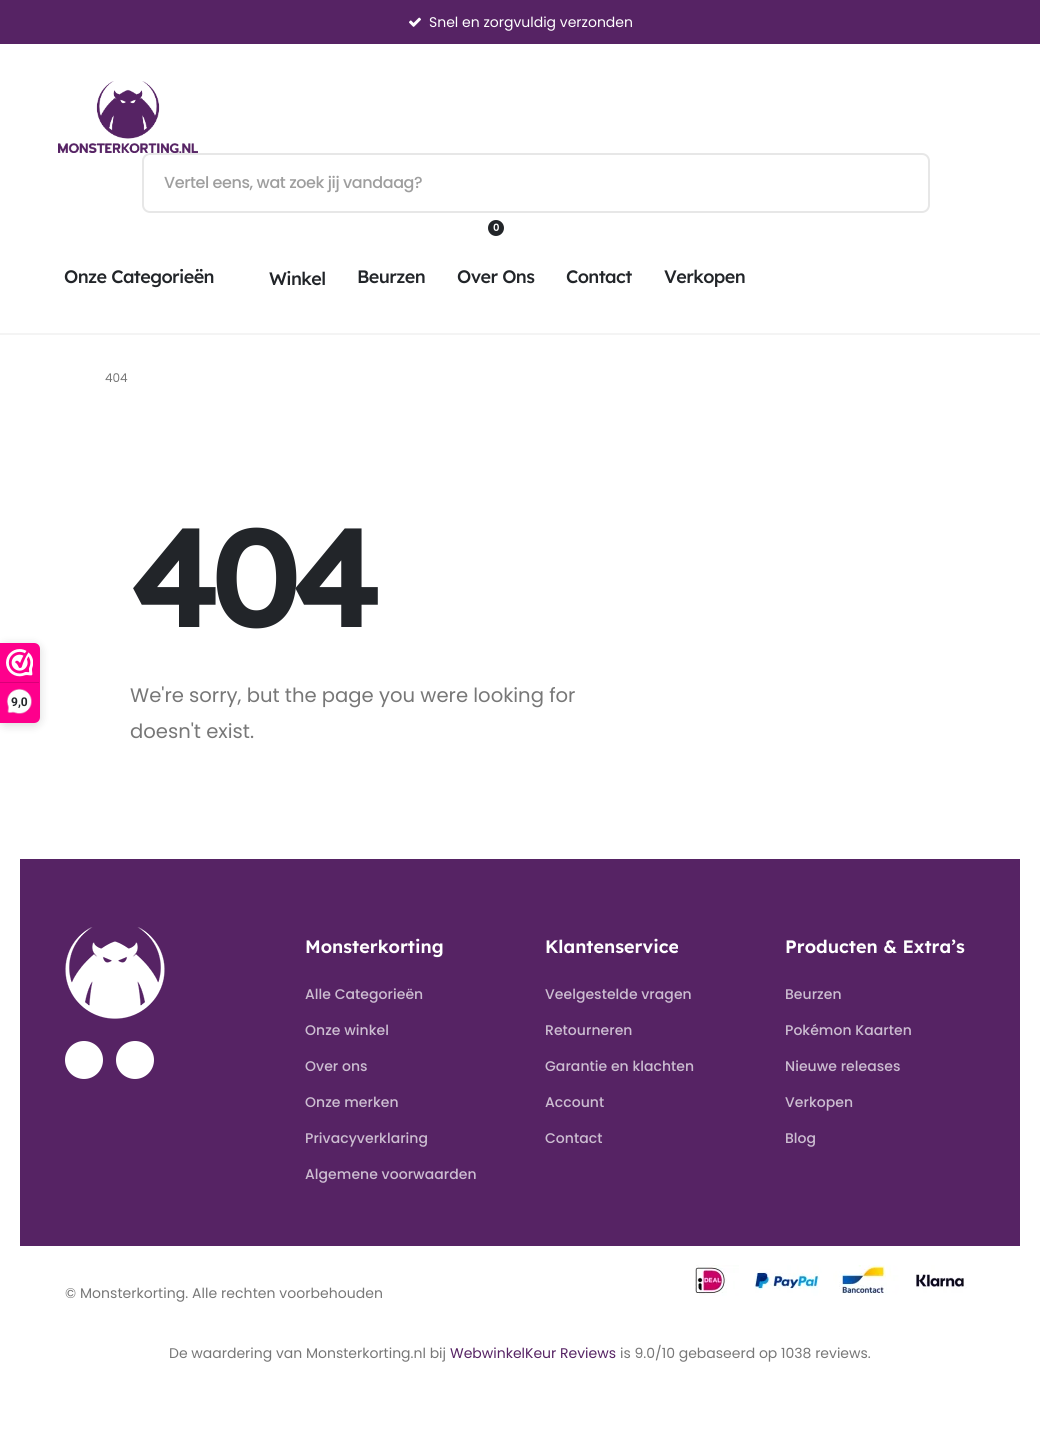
#include <cairo/cairo.h>
#include <math.h>
#include <stddef.h>


static void draw_spaced(cairo_t *cr, double x, double y, const char *s, double letter, double word) {
  cairo_move_to(cr, x, y);
  while (*s) {
    char ch[5] = {0};
    int n = 0;
    do ch[n++] = *s++; while ((*s & 0xC0) == 0x80);
    cairo_show_text(cr, ch);
    cairo_rel_move_to(cr, letter + word * (*ch == ' '), 0);
  }
}

static void rounded_rect(cairo_t *cr, double x, double y, double w, double h, double r) {
  cairo_new_sub_path(cr);
  cairo_arc(cr, x + w - r, y + h - r, r, 0, M_PI / 2);
  cairo_arc(cr, x + r, y + h - r, r, M_PI / 2, M_PI);
  cairo_arc(cr, x + r, y + r, r, M_PI, 1.5 * M_PI);
  cairo_arc(cr, x + w - r, y + r, r, 1.5 * M_PI, 2 * M_PI);
  cairo_close_path(cr);
}

static void draw_shadow(cairo_t *cr, double x, double y, double w, double h, double r, double blur, double alpha) {
  cairo_push_group_with_content(cr, CAIRO_CONTENT_ALPHA);
  cairo_set_operator(cr, CAIRO_OPERATOR_SOURCE);
  for (int i = 15; i >= -15 && fmin(w, h) + blur * i / 3 > 0; i -= 2) {
    double e = blur * i / 6;
    cairo_set_source_rgba(cr, 0, 0, 0, alpha * erfc((i - 1) / 8.5) / 2);
    rounded_rect(cr, x - e, y - e, w + 2 * e, h + 2 * e, fmax(0, fmin(r + e + blur * .6, fmin(w, h) / 2 + e)));
    cairo_fill(cr);
  }
  cairo_pattern_t *soft = cairo_pop_group(cr);
  cairo_mask(cr, soft);
  cairo_pattern_destroy(soft);
}

static void draw_image(cairo_t *cr, const char *path, double x, double y, double w, double h) {
  cairo_surface_t *image = cairo_image_surface_create_from_png(path);
  cairo_save(cr);
  cairo_set_source_surface(cr, image, x, y);
  cairo_rectangle(cr, x, y, w, h);
  cairo_fill(cr);
  cairo_restore(cr);
  cairo_surface_destroy(image);
}

static void draw(cairo_t *cr) {
  cairo_set_source_rgb(cr, 1, 1, 1);
  cairo_paint(cr);
  cairo_set_source_rgb(cr, 0, 0, 0);
  draw_shadow(cr, 0, 645, 40, 80, 6, 5, 0.15);
  cairo_set_source_rgb(cr, 254 / 255.0, 0, 140 / 255.0);
  cairo_new_path(cr);
  cairo_move_to(cr, 0, 643);
  cairo_line_to(cr, 34, 643);
  cairo_curve_to(cr, 37.5, 643, 40, 645.5, 40, 649);
  cairo_line_to(cr, 40, 717);
  cairo_curve_to(cr, 40, 720.5, 37.5, 723, 34, 723);
  cairo_line_to(cr, 0, 723);
  cairo_close_path(cr);
  cairo_fill(cr);
  draw_image(cr, "images/1.png", 6, 649, 27, 28);
  cairo_set_source_rgb(cr, 216 / 255.0, 0, 119 / 255.0);
  cairo_rectangle(cr, 0, 682, 39, 1);
  cairo_fill(cr);
  draw_image(cr, "images/2.png", 6, 688, 26, 26);
  cairo_set_source_rgb(cr, 86 / 255.0, 35 / 255.0, 100 / 255.0);
  cairo_rectangle(cr, 0, 0, 1040, 44);
  cairo_fill(cr);
  draw_image(cr, "images/3.png", 409, 17, 12, 10);
  draw_image(cr, "images/4.png", 58, 81, 140, 72);
  rounded_rect(cr, 143, 154, 786, 58, 7);
  cairo_set_source_rgb(cr, 231 / 255.0, 231 / 255.0, 231 / 255.0);
  cairo_stroke(cr);
  cairo_set_source_rgb(cr, 34 / 255.0, 37 / 255.0, 41 / 255.0);
  cairo_arc(cr, 496, 228, 8, 0, 2 * M_PI);
  cairo_fill(cr);
  cairo_set_source_rgb(cr, 244 / 255.0, 244 / 255.0, 244 / 255.0);
  cairo_rectangle(cr, 0, 333, 1040, 2);
  cairo_fill(cr);
  cairo_set_source_rgb(cr, 86 / 255.0, 35 / 255.0, 100 / 255.0);
  cairo_rectangle(cr, 20, 859, 1000, 387);
  cairo_fill(cr);
  draw_image(cr, "images/5.png", 65, 927, 100, 92);
  cairo_set_source_rgb(cr, 1, 1, 1);
  cairo_arc(cr, 84, 1060, 19, 0, 2 * M_PI);
  cairo_fill(cr);
  cairo_arc(cr, 135, 1060, 19, 0, 2 * M_PI);
  cairo_fill(cr);
  draw_image(cr, "images/6.png", 695, 1265, 272, 31);
  cairo_select_font_face(cr, "Roboto", CAIRO_FONT_SLANT_NORMAL, CAIRO_FONT_WEIGHT_BOLD);
  cairo_set_font_size(cr, 12);
  cairo_set_source_rgb(cr, 34 / 255.0, 37 / 255.0, 41 / 255.0);
  cairo_move_to(cr, 11, 706);
  cairo_show_text(cr, "9,0");
  cairo_select_font_face(cr, "Poppins", CAIRO_FONT_SLANT_NORMAL, CAIRO_FONT_WEIGHT_NORMAL);
  cairo_set_font_size(cr, 14);
  cairo_set_source_rgb(cr, 1, 1, 1);
  cairo_move_to(cr, 429, 27);
  cairo_show_text(cr, "Snel en zorgvuldig verzonden");
  cairo_select_font_face(cr, "Poppins Medium", CAIRO_FONT_SLANT_NORMAL, CAIRO_FONT_WEIGHT_NORMAL);
  cairo_set_font_size(cr, 16);
  cairo_set_source_rgb(cr, 158 / 255.0, 158 / 255.0, 158 / 255.0);
  draw_spaced(cr, 164, 188, "Vertel eens, wat zoek jij vandaag?", -0.4, 0);
  cairo_select_font_face(cr, "Poppins SemiBold", CAIRO_FONT_SLANT_NORMAL, CAIRO_FONT_WEIGHT_NORMAL);
  cairo_set_font_size(cr, 10);
  cairo_set_source_rgb(cr, 1, 1, 1);
  cairo_move_to(cr, 493, 231);
  cairo_show_text(cr, "0");
  cairo_select_font_face(cr, "Lexend Medium", CAIRO_FONT_SLANT_NORMAL, CAIRO_FONT_WEIGHT_NORMAL);
  cairo_set_font_size(cr, 18);
  cairo_set_source_rgb(cr, 34 / 255.0, 37 / 255.0, 41 / 255.0);
  draw_spaced(cr, 64, 283, "Onze Categorieën", -0.6, 0);
  draw_spaced(cr, 269, 285, "Winkel", -0.6, 0);
  draw_spaced(cr, 357, 283, "Beurzen", -0.6, 0);
  draw_spaced(cr, 457, 283, "Over Ons", -0.6, 0);
  draw_spaced(cr, 566, 283, "Contact", -0.6, 0);
  draw_spaced(cr, 664, 283, "Verkopen", -0.6, 0);
  cairo_select_font_face(cr, "Poppins", CAIRO_FONT_SLANT_NORMAL, CAIRO_FONT_WEIGHT_NORMAL);
  cairo_set_font_size(cr, 12);
  cairo_set_source_rgb(cr, 119 / 255.0, 119 / 255.0, 119 / 255.0);
  cairo_move_to(cr, 105, 382);
  cairo_show_text(cr, "404");
  cairo_select_font_face(cr, "Lexend SemiBold", CAIRO_FONT_SLANT_NORMAL, CAIRO_FONT_WEIGHT_NORMAL);
  cairo_set_font_size(cr, 140);
  cairo_set_source_rgb(cr, 34 / 255.0, 37 / 255.0, 41 / 255.0);
  draw_spaced(cr, 130, 627, "404", -10, 0);
  cairo_select_font_face(cr, "Poppins", CAIRO_FONT_SLANT_NORMAL, CAIRO_FONT_WEIGHT_NORMAL);
  cairo_set_font_size(cr, 19.6);
  cairo_set_source_rgb(cr, 119 / 255.0, 119 / 255.0, 119 / 255.0);
  cairo_move_to(cr, 130, 702);
  cairo_show_text(cr, "We're sorry, but the page you were looking for");
  cairo_move_to(cr, 130, 738);
  cairo_show_text(cr, "doesn't exist.");
  cairo_select_font_face(cr, "Lexend SemiBold", CAIRO_FONT_SLANT_NORMAL, CAIRO_FONT_WEIGHT_NORMAL);
  cairo_set_font_size(cr, 18);
  cairo_set_source_rgb(cr, 1, 1, 1);
  cairo_move_to(cr, 305, 953);
  cairo_show_text(cr, "Monsterkorting");
  cairo_select_font_face(cr, "Poppins Medium", CAIRO_FONT_SLANT_NORMAL, CAIRO_FONT_WEIGHT_NORMAL);
  cairo_set_font_size(cr, 14);
  cairo_set_source_rgb(cr, 204 / 255.0, 189 / 255.0, 209 / 255.0);
  draw_spaced(cr, 305, 999, "Alle Categorieën", 0.05, 0);
  draw_spaced(cr, 305, 1035, "Onze winkel", 0.05, 0);
  draw_spaced(cr, 305, 1071, "Over ons", 0.05, 0);
  draw_spaced(cr, 305, 1107, "Onze merken", 0.05, 0);
  draw_spaced(cr, 305, 1143, "Privacyverklaring", 0.05, 0);
  draw_spaced(cr, 305, 1179, "Algemene voorwaarden", 0.05, 0);
  cairo_select_font_face(cr, "Lexend SemiBold", CAIRO_FONT_SLANT_NORMAL, CAIRO_FONT_WEIGHT_NORMAL);
  cairo_set_font_size(cr, 18);
  cairo_set_source_rgb(cr, 1, 1, 1);
  cairo_move_to(cr, 545, 953);
  cairo_show_text(cr, "Klantenservice");
  cairo_select_font_face(cr, "Poppins Medium", CAIRO_FONT_SLANT_NORMAL, CAIRO_FONT_WEIGHT_NORMAL);
  cairo_set_font_size(cr, 14);
  cairo_set_source_rgb(cr, 204 / 255.0, 189 / 255.0, 209 / 255.0);
  draw_spaced(cr, 545, 999, "Veelgestelde vragen", 0.05, 0);
  draw_spaced(cr, 545, 1035, "Retourneren", 0.05, 0);
  draw_spaced(cr, 545, 1071, "Garantie en klachten", 0.05, 0);
  draw_spaced(cr, 545, 1107, "Account", 0.05, 0);
  draw_spaced(cr, 545, 1143, "Contact", 0.05, 0);
  cairo_select_font_face(cr, "Lexend SemiBold", CAIRO_FONT_SLANT_NORMAL, CAIRO_FONT_WEIGHT_NORMAL);
  cairo_set_font_size(cr, 18);
  cairo_set_source_rgb(cr, 1, 1, 1);
  cairo_move_to(cr, 785, 953);
  cairo_show_text(cr, "Producten & Extra’s");
  cairo_select_font_face(cr, "Poppins Medium", CAIRO_FONT_SLANT_NORMAL, CAIRO_FONT_WEIGHT_NORMAL);
  cairo_set_font_size(cr, 14);
  cairo_set_source_rgb(cr, 204 / 255.0, 189 / 255.0, 209 / 255.0);
  draw_spaced(cr, 785, 999, "Beurzen", 0.05, 0);
  draw_spaced(cr, 785, 1035, "Pokémon Kaarten", 0.05, 0);
  draw_spaced(cr, 785, 1071, "Nieuwe releases", 0.05, 0);
  draw_spaced(cr, 785, 1107, "Verkopen", 0.05, 0);
  draw_spaced(cr, 785, 1143, "Blog", 0.05, 0);
  cairo_select_font_face(cr, "Poppins", CAIRO_FONT_SLANT_NORMAL, CAIRO_FONT_WEIGHT_NORMAL);
  cairo_set_source_rgb(cr, 119 / 255.0, 119 / 255.0, 119 / 255.0);
  draw_spaced(cr, 65, 1298, "© Monsterkorting. Alle rechten voorbehouden", 0.05, 0);
  cairo_move_to(cr, 169, 1358);
  cairo_show_text(cr, "De waardering van Monsterkorting.nl bij");
  cairo_set_source_rgb(cr, 86 / 255.0, 35 / 255.0, 100 / 255.0);
  cairo_move_to(cr, 450, 1358);
  cairo_show_text(cr, "WebwinkelKeur Reviews");
  cairo_set_source_rgb(cr, 119 / 255.0, 119 / 255.0, 119 / 255.0);
  cairo_move_to(cr, 620, 1358);
  cairo_show_text(cr, "is 9.0/10 gebaseerd op 1038 reviews.");
}

int main(void) {
  cairo_surface_t *surface = cairo_image_surface_create(CAIRO_FORMAT_RGB24, 1040, 1445);
  cairo_t *cr = cairo_create(surface);
  cairo_font_options_t *options = cairo_font_options_create();
  cairo_font_options_set_hint_metrics(options, CAIRO_HINT_METRICS_OFF);
  cairo_font_options_set_hint_style(options, CAIRO_HINT_STYLE_NONE);
  cairo_set_font_options(cr, options);
  cairo_set_miter_limit(cr, 4);
  draw(cr);
  cairo_surface_write_to_png(surface, "out.png");
  cairo_font_options_destroy(options);
  cairo_destroy(cr);
  cairo_surface_destroy(surface);
  return 0;
}
